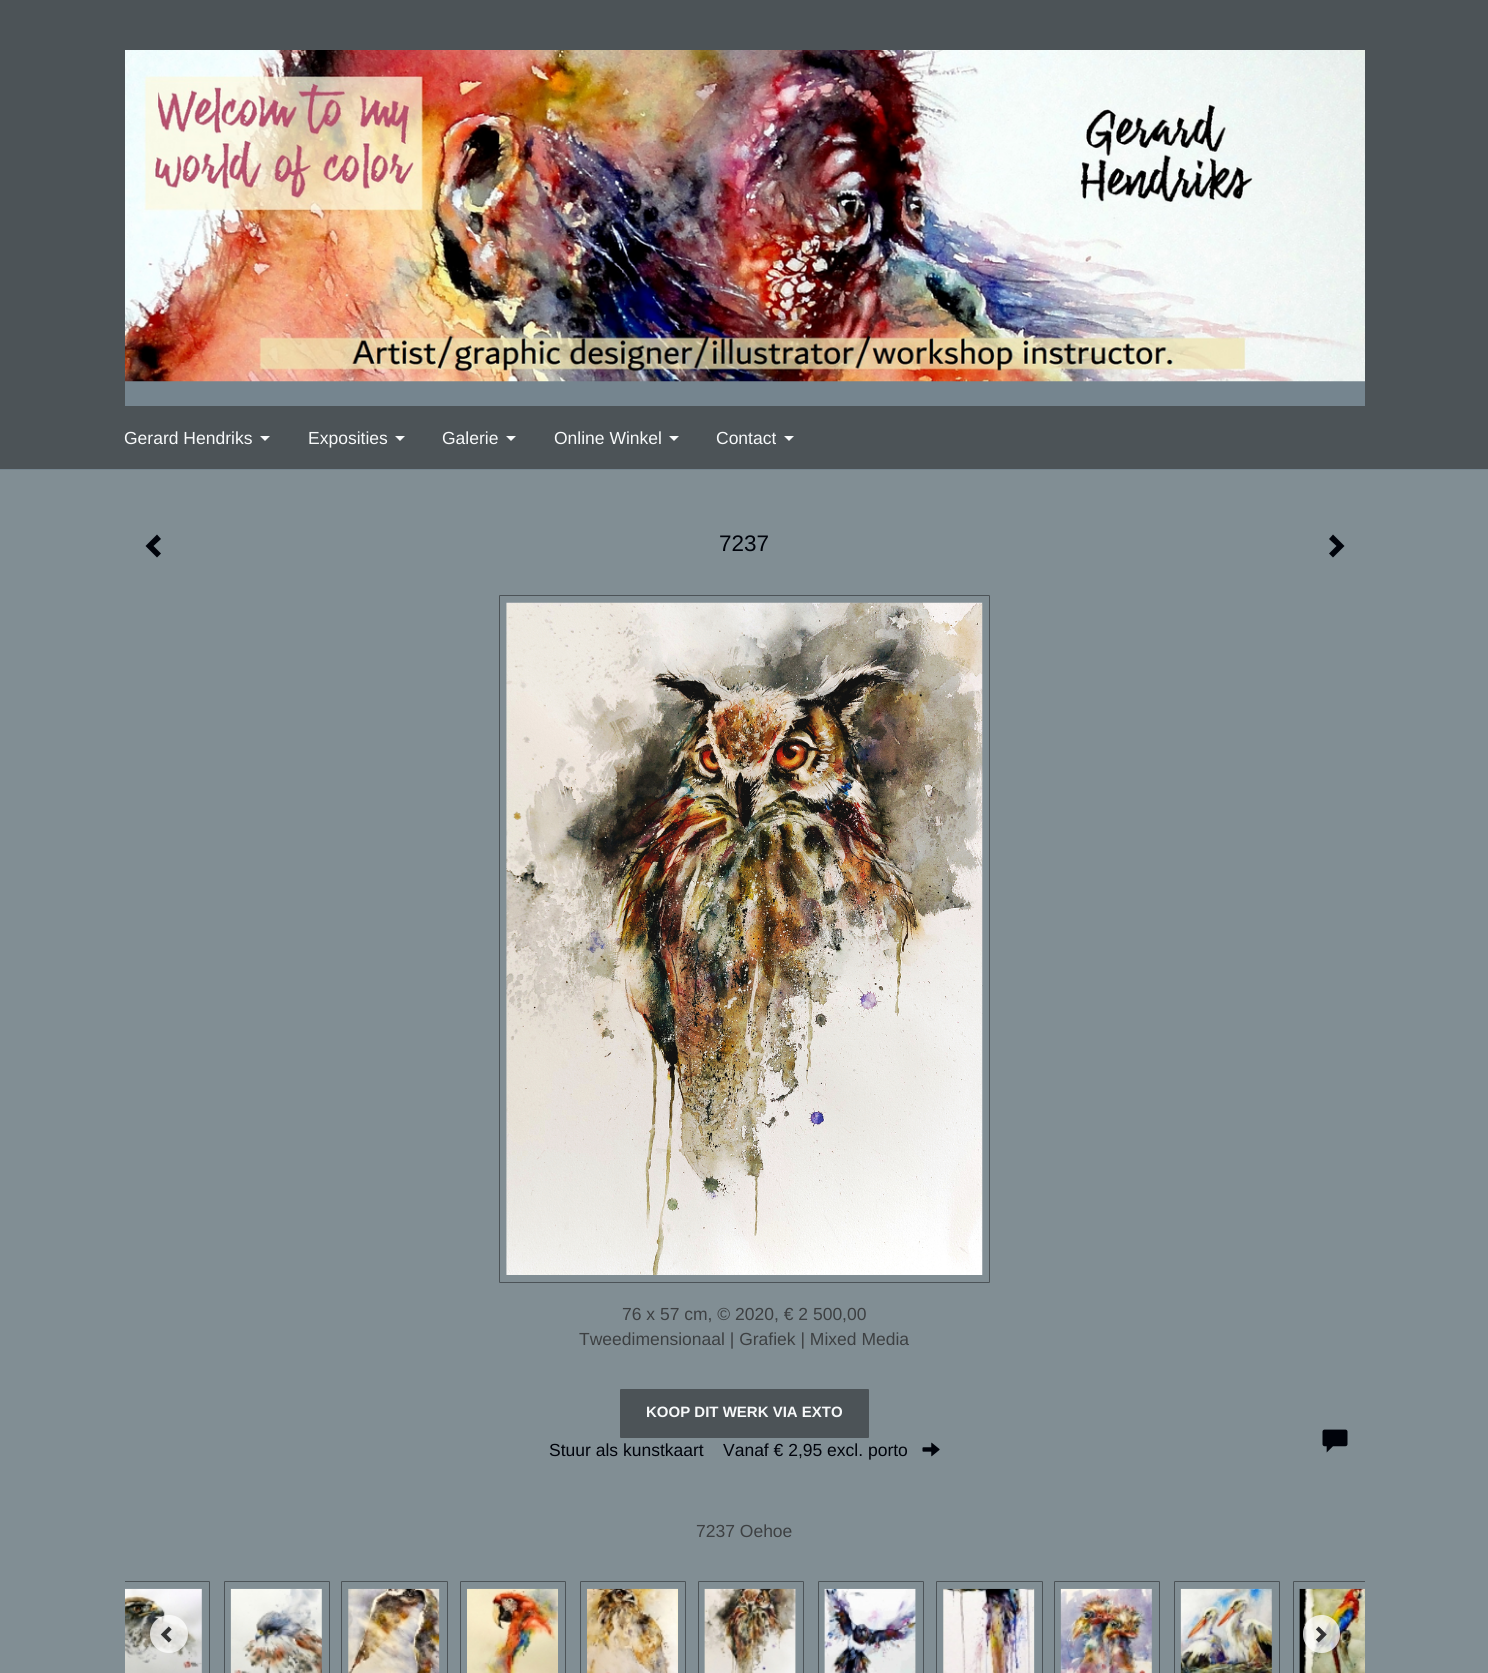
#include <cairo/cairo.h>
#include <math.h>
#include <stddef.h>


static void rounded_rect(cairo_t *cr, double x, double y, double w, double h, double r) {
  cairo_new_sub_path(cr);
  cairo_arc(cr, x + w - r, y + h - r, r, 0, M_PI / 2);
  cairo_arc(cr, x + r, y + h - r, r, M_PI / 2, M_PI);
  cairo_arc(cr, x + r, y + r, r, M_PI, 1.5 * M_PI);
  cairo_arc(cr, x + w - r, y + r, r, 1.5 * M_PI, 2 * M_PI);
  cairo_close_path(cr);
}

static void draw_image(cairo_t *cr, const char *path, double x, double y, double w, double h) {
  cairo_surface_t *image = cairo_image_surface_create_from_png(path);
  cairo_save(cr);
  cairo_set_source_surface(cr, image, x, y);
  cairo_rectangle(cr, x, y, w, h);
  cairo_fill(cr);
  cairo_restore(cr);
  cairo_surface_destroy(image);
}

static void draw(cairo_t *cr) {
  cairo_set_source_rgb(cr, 129 / 255.0, 142 / 255.0, 148 / 255.0);
  cairo_paint(cr);
  cairo_set_source_rgb(cr, 76 / 255.0, 83 / 255.0, 87 / 255.0);
  cairo_rectangle(cr, 0, 0, 1488, 469);
  cairo_fill(cr);
  cairo_set_source_rgb(cr, 117 / 255.0, 133 / 255.0, 143 / 255.0);
  cairo_rectangle(cr, 125, 381, 1240, 25);
  cairo_fill(cr);
  draw_image(cr, "images/1.png", 125, 50, 1240, 332);
  cairo_rectangle(cr, 0, 469, 1488, 1);
  cairo_fill(cr);
  cairo_set_source_rgb(cr, 247 / 255.0, 249 / 255.0, 250 / 255.0);
  cairo_new_path(cr);
  cairo_move_to(cr, 260, 436);
  cairo_line_to(cr, 270, 436);
  cairo_line_to(cr, 265, 441);
  cairo_close_path(cr);
  cairo_fill(cr);
  cairo_new_path(cr);
  cairo_move_to(cr, 395, 436);
  cairo_line_to(cr, 405, 436);
  cairo_line_to(cr, 400, 441);
  cairo_close_path(cr);
  cairo_fill(cr);
  cairo_new_path(cr);
  cairo_move_to(cr, 506, 436);
  cairo_line_to(cr, 516, 436);
  cairo_line_to(cr, 511, 441);
  cairo_close_path(cr);
  cairo_fill(cr);
  cairo_new_path(cr);
  cairo_move_to(cr, 669, 436);
  cairo_line_to(cr, 679, 436);
  cairo_line_to(cr, 674, 441);
  cairo_close_path(cr);
  cairo_fill(cr);
  cairo_new_path(cr);
  cairo_move_to(cr, 784, 436);
  cairo_line_to(cr, 794, 436);
  cairo_line_to(cr, 789, 441);
  cairo_close_path(cr);
  cairo_fill(cr);
  cairo_set_source_rgb(cr, 0, 3 / 255.0, 11 / 255.0);
  cairo_new_path(cr);
  cairo_move_to(cr, 161, 539);
  cairo_line_to(cr, 153.5, 546);
  cairo_line_to(cr, 161, 553.5);
  cairo_line_to(cr, 157, 557.5);
  cairo_line_to(cr, 145.5, 546);
  cairo_line_to(cr, 157, 534.5);
  cairo_close_path(cr);
  cairo_fill(cr);
  cairo_new_path(cr);
  cairo_move_to(cr, 1344.5, 546);
  cairo_line_to(cr, 1333, 557.5);
  cairo_line_to(cr, 1329, 553.5);
  cairo_line_to(cr, 1336.5, 546);
  cairo_line_to(cr, 1329, 539);
  cairo_line_to(cr, 1333, 534.5);
  cairo_close_path(cr);
  cairo_fill(cr);
  rounded_rect(cr, 499.5, 595.5, 490, 687, 0.5);
  cairo_set_source_rgb(cr, 76 / 255.0, 83 / 255.0, 87 / 255.0);
  cairo_set_line_width(cr, 1);
  cairo_stroke(cr);
  draw_image(cr, "images/2.png", 506, 602, 477, 673);
  rounded_rect(cr, 620.5, 1389.5, 248, 48, 0.5);
  cairo_fill_preserve(cr);
  cairo_stroke(cr);
  draw_image(cr, "images/3.png", 922, 1442, 18, 15);
  draw_image(cr, "images/4.png", 1322, 1429, 26, 24);
  cairo_save(cr);
  cairo_rectangle(cr, 125, 1575, 1240, 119);
  cairo_clip(cr);
  rounded_rect(cr, 104.5, 1581.5, 105, 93, 0.5);
  cairo_stroke(cr);
  cairo_restore(cr);
  draw_image(cr, "images/5.png", 125, 1588, 77, 85);
  rounded_rect(cr, 224.5, 1581.5, 105, 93, 0.5);
  cairo_stroke(cr);
  draw_image(cr, "images/6.png", 230, 1588, 92, 85);
  rounded_rect(cr, 341.5, 1581.5, 106, 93, 0.5);
  cairo_stroke(cr);
  draw_image(cr, "images/7.png", 348, 1588, 92, 85);
  rounded_rect(cr, 460.5, 1581.5, 105, 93, 0.5);
  cairo_stroke(cr);
  draw_image(cr, "images/8.png", 467, 1588, 91, 85);
  rounded_rect(cr, 580.5, 1581.5, 105, 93, 0.5);
  cairo_stroke(cr);
  draw_image(cr, "images/9.png", 587, 1588, 91, 85);
  rounded_rect(cr, 698.5, 1581.5, 105, 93, 0.5);
  cairo_stroke(cr);
  draw_image(cr, "images/10.png", 704, 1588, 92, 85);
  rounded_rect(cr, 818.5, 1581.5, 105, 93, 0.5);
  cairo_stroke(cr);
  draw_image(cr, "images/11.png", 824, 1588, 92, 85);
  rounded_rect(cr, 936.5, 1581.5, 106, 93, 0.5);
  cairo_stroke(cr);
  draw_image(cr, "images/12.png", 943, 1588, 92, 85);
  rounded_rect(cr, 1054.5, 1581.5, 105, 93, 0.5);
  cairo_stroke(cr);
  draw_image(cr, "images/13.png", 1060, 1588, 92, 85);
  rounded_rect(cr, 1174.5, 1581.5, 105, 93, 0.5);
  cairo_stroke(cr);
  draw_image(cr, "images/14.png", 1180, 1588, 92, 85);
  cairo_save(cr);
  cairo_rectangle(cr, 125, 1575, 1240, 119);
  cairo_clip(cr);
  rounded_rect(cr, 1293.5, 1581.5, 105, 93, 0.5);
  cairo_stroke(cr);
  cairo_restore(cr);
  draw_image(cr, "images/15.png", 1299, 1588, 66, 85);
  cairo_set_source_rgba(cr, 1, 1, 1, 0.75);
  cairo_arc(cr, 169, 1634, 19, 0, 2 * M_PI);
  cairo_fill(cr);
  draw_image(cr, "images/16.png", 160, 1626, 12, 17);
  rounded_rect(cr, 1303, 1615, 37, 38, 18.5);
  cairo_fill(cr);
  draw_image(cr, "images/17.png", 1315, 1626, 12, 17);
  cairo_select_font_face(cr, "Liberation Sans", CAIRO_FONT_SLANT_NORMAL, CAIRO_FONT_WEIGHT_NORMAL);
  cairo_set_font_size(cr, 17.5);
  cairo_set_source_rgb(cr, 247 / 255.0, 249 / 255.0, 250 / 255.0);
  cairo_move_to(cr, 124, 444);
  cairo_show_text(cr, "Gerard Hendriks");
  cairo_move_to(cr, 308, 444);
  cairo_show_text(cr, "Exposities");
  cairo_move_to(cr, 442, 444);
  cairo_show_text(cr, "Galerie");
  cairo_move_to(cr, 554, 444);
  cairo_show_text(cr, "Online Winkel");
  cairo_move_to(cr, 716, 444);
  cairo_show_text(cr, "Contact");
  cairo_set_font_size(cr, 22.5);
  cairo_set_source_rgb(cr, 0, 3 / 255.0, 11 / 255.0);
  cairo_move_to(cr, 719, 551);
  cairo_show_text(cr, "7237");
  cairo_set_font_size(cr, 17.5);
  cairo_set_source_rgb(cr, 61 / 255.0, 64 / 255.0, 66 / 255.0);
  cairo_move_to(cr, 622, 1320);
  cairo_show_text(cr, "76 x 57 cm, © 2020, € 2 500,00");
  cairo_move_to(cr, 579, 1345);
  cairo_show_text(cr, "Tweedimensionaal | Grafiek | Mixed Media");
  cairo_select_font_face(cr, "Liberation Sans", CAIRO_FONT_SLANT_NORMAL, CAIRO_FONT_WEIGHT_BOLD);
  cairo_set_font_size(cr, 15);
  cairo_set_source_rgb(cr, 247 / 255.0, 249 / 255.0, 250 / 255.0);
  cairo_move_to(cr, 646, 1417);
  cairo_show_text(cr, "KOOP DIT WERK VIA EXTO");
  cairo_select_font_face(cr, "Liberation Sans", CAIRO_FONT_SLANT_NORMAL, CAIRO_FONT_WEIGHT_NORMAL);
  cairo_set_font_size(cr, 17.5);
  cairo_set_source_rgb(cr, 0, 3 / 255.0, 11 / 255.0);
  cairo_move_to(cr, 549, 1456);
  cairo_show_text(cr, "Stuur als kunstkaart");
  cairo_move_to(cr, 723, 1456);
  cairo_show_text(cr, "Vanaf € 2,95 excl. porto");
  cairo_set_source_rgb(cr, 61 / 255.0, 64 / 255.0, 66 / 255.0);
  cairo_move_to(cr, 696, 1537);
  cairo_show_text(cr, "7237 Oehoe");
}

int main(void) {
  cairo_surface_t *surface = cairo_image_surface_create(CAIRO_FORMAT_RGB24, 1488, 1673);
  cairo_t *cr = cairo_create(surface);
  cairo_font_options_t *options = cairo_font_options_create();
  cairo_font_options_set_hint_metrics(options, CAIRO_HINT_METRICS_OFF);
  cairo_font_options_set_hint_style(options, CAIRO_HINT_STYLE_NONE);
  cairo_set_font_options(cr, options);
  cairo_set_miter_limit(cr, 4);
  draw(cr);
  cairo_surface_write_to_png(surface, "out.png");
  cairo_font_options_destroy(options);
  cairo_destroy(cr);
  cairo_surface_destroy(surface);
  return 0;
}
